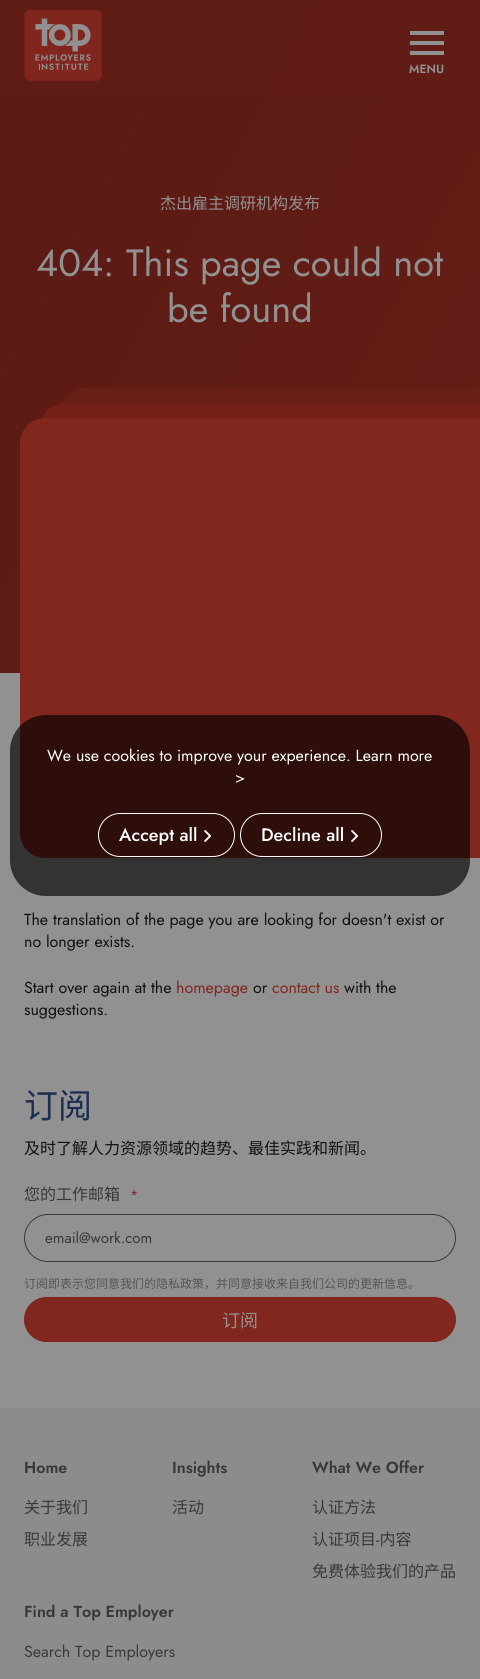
#include <cairo/cairo.h>
#include <math.h>
#include <stddef.h>


static void rounded_rect(cairo_t *cr, double x, double y, double w, double h, double r) {
  cairo_new_sub_path(cr);
  cairo_arc(cr, x + w - r, y + h - r, r, 0, M_PI / 2);
  cairo_arc(cr, x + r, y + h - r, r, M_PI / 2, M_PI);
  cairo_arc(cr, x + r, y + r, r, M_PI, 1.5 * M_PI);
  cairo_arc(cr, x + w - r, y + r, r, 1.5 * M_PI, 2 * M_PI);
  cairo_close_path(cr);
}

static void draw_image(cairo_t *cr, const char *path, double x, double y, double w, double h) {
  cairo_surface_t *image = cairo_image_surface_create_from_png(path);
  cairo_save(cr);
  cairo_set_source_surface(cr, image, x, y);
  cairo_rectangle(cr, x, y, w, h);
  cairo_fill(cr);
  cairo_restore(cr);
  cairo_surface_destroy(image);
}

static void draw(cairo_t *cr) {
  cairo_pattern_t *gradient;
  cairo_set_source_rgb(cr, 145 / 255.0, 145 / 255.0, 145 / 255.0);
  cairo_paint(cr);
  gradient = cairo_pattern_create_linear(-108, 299, 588, 670);
  cairo_pattern_add_color_stop_rgba(gradient, 0, 89 / 255.0, 26 / 255.0, 19 / 255.0, 1);
  cairo_pattern_add_color_stop_rgba(gradient, 1, 104 / 255.0, 31 / 255.0, 23 / 255.0, 1);
  cairo_set_source(cr, gradient);
  cairo_pattern_destroy(gradient);
  cairo_rectangle(cr, 0, 96, 480, 577);
  cairo_fill(cr);
  gradient = cairo_pattern_create_linear(-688, -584, 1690, 680);
  cairo_pattern_add_color_stop_rgba(gradient, 0, 89 / 255.0, 26 / 255.0, 19 / 255.0, 1);
  cairo_pattern_add_color_stop_rgba(gradient, 1, 104 / 255.0, 31 / 255.0, 23 / 255.0, 1);
  cairo_set_source(cr, gradient);
  cairo_pattern_destroy(gradient);
  cairo_rectangle(cr, 0, 0, 480, 96);
  cairo_fill(cr);
  draw_image(cr, "images/1.png", 24, 10, 78, 71);
  cairo_set_source_rgb(cr, 145 / 255.0, 145 / 255.0, 145 / 255.0);
  cairo_rectangle(cr, 410, 31, 34, 4);
  cairo_fill(cr);
  cairo_rectangle(cr, 410, 41, 34, 4);
  cairo_fill(cr);
  cairo_rectangle(cr, 410, 51, 34, 4);
  cairo_fill(cr);
  cairo_set_source_rgb(cr, 104 / 255.0, 31 / 255.0, 23 / 255.0);
  rounded_rect(cr, 60, 388, 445, 440, 25);
  cairo_fill(cr);
  cairo_set_source_rgb(cr, 116 / 255.0, 32 / 255.0, 24 / 255.0);
  rounded_rect(cr, 40, 403, 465, 440, 25);
  cairo_fill(cr);
  cairo_set_source_rgb(cr, 129 / 255.0, 39 / 255.0, 30 / 255.0);
  rounded_rect(cr, 20, 418, 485, 440, 25);
  cairo_fill(cr);
  cairo_set_source_rgba(cr, 0, 0, 0, 0.65);
  rounded_rect(cr, 10, 715, 460, 181, 36);
  cairo_fill(cr);
  rounded_rect(cr, 98.5, 813.5, 136, 43, 21.5);
  cairo_set_source_rgb(cr, 1, 1, 1);
  cairo_set_line_width(cr, 1);
  cairo_stroke(cr);
  draw_image(cr, "images/2.png", 204, 830, 7, 12);
  rounded_rect(cr, 240.5, 813.5, 141, 43, 21.5);
  cairo_stroke(cr);
  draw_image(cr, "images/2.png", 351, 830, 7, 12);
  rounded_rect(cr, 24.5, 1214.5, 431, 47, 23.5);
  cairo_set_source_rgb(cr, 57 / 255.0, 57 / 255.0, 57 / 255.0);
  cairo_stroke(cr);
  cairo_set_source_rgb(cr, 129 / 255.0, 39 / 255.0, 30 / 255.0);
  rounded_rect(cr, 24.5, 1297.5, 431, 44, 22);
  cairo_fill_preserve(cr);
  cairo_stroke(cr);
  cairo_set_source_rgb(cr, 140 / 255.0, 140 / 255.0, 140 / 255.0);
  cairo_rectangle(cr, 0, 1408, 480, 271);
  cairo_fill(cr);
  cairo_select_font_face(cr, "Jost SemiBold", CAIRO_FONT_SLANT_NORMAL, CAIRO_FONT_WEIGHT_NORMAL);
  cairo_set_font_size(cr, 12);
  cairo_set_source_rgb(cr, 145 / 255.0, 145 / 255.0, 145 / 255.0);
  cairo_move_to(cr, 409, 73);
  cairo_show_text(cr, "MENU");
  cairo_select_font_face(cr, "Noto Sans CJK SC", CAIRO_FONT_SLANT_NORMAL, CAIRO_FONT_WEIGHT_NORMAL);
  cairo_set_font_size(cr, 16);
  cairo_move_to(cr, 160, 209);
  cairo_show_text(cr, "杰出雇主调研机构发布");
  cairo_select_font_face(cr, "Jost", CAIRO_FONT_SLANT_NORMAL, CAIRO_FONT_WEIGHT_NORMAL);
  cairo_set_font_size(cr, 38);
  cairo_move_to(cr, 36, 276);
  cairo_show_text(cr, "404: This page could not");
  cairo_move_to(cr, 167, 322);
  cairo_show_text(cr, "be found");
  cairo_set_font_size(cr, 16);
  cairo_set_source_rgb(cr, 1, 1, 1);
  cairo_move_to(cr, 47, 761);
  cairo_show_text(cr, "We use cookies to improve your experience. Learn more");
  cairo_move_to(cr, 235, 783);
  cairo_show_text(cr, ">");
  cairo_select_font_face(cr, "Jost Medium", CAIRO_FONT_SLANT_NORMAL, CAIRO_FONT_WEIGHT_NORMAL);
  cairo_set_font_size(cr, 18);
  cairo_move_to(cr, 119, 841);
  cairo_show_text(cr, "Accept all");
  cairo_move_to(cr, 261, 841);
  cairo_show_text(cr, "Decline all");
  cairo_select_font_face(cr, "Jost", CAIRO_FONT_SLANT_NORMAL, CAIRO_FONT_WEIGHT_NORMAL);
  cairo_set_font_size(cr, 16);
  cairo_set_source_rgb(cr, 17 / 255.0, 17 / 255.0, 17 / 255.0);
  cairo_move_to(cr, 24, 925);
  cairo_show_text(cr, "The translation of the page you are looking for doesn't exist or");
  cairo_move_to(cr, 24, 947);
  cairo_show_text(cr, "no longer exists.");
  cairo_move_to(cr, 24, 993);
  cairo_show_text(cr, "Start over again at the");
  cairo_set_source_rgb(cr, 129 / 255.0, 39 / 255.0, 30 / 255.0);
  cairo_move_to(cr, 176, 993);
  cairo_show_text(cr, "homepage");
  cairo_set_source_rgb(cr, 17 / 255.0, 17 / 255.0, 17 / 255.0);
  cairo_move_to(cr, 253, 993);
  cairo_show_text(cr, "or");
  cairo_set_source_rgb(cr, 129 / 255.0, 39 / 255.0, 30 / 255.0);
  cairo_move_to(cr, 272, 993);
  cairo_show_text(cr, "contact us");
  cairo_set_source_rgb(cr, 17 / 255.0, 17 / 255.0, 17 / 255.0);
  cairo_move_to(cr, 344, 993);
  cairo_show_text(cr, "with the");
  cairo_move_to(cr, 24, 1015);
  cairo_show_text(cr, "suggestions.");
  cairo_select_font_face(cr, "Noto Sans CJK SC", CAIRO_FONT_SLANT_NORMAL, CAIRO_FONT_WEIGHT_NORMAL);
  cairo_set_font_size(cr, 34);
  cairo_set_source_rgb(cr, 28 / 255.0, 47 / 255.0, 83 / 255.0);
  cairo_move_to(cr, 24, 1118);
  cairo_show_text(cr, "订阅");
  cairo_set_font_size(cr, 16);
  cairo_set_source_rgb(cr, 17 / 255.0, 17 / 255.0, 17 / 255.0);
  cairo_move_to(cr, 24, 1154);
  cairo_show_text(cr, "及时了解人力资源领域的趋势、最佳实践和新闻。");
  cairo_set_source_rgb(cr, 57 / 255.0, 57 / 255.0, 57 / 255.0);
  cairo_move_to(cr, 24, 1200);
  cairo_show_text(cr, "您的工作邮箱");
  cairo_select_font_face(cr, "Jost", CAIRO_FONT_SLANT_NORMAL, CAIRO_FONT_WEIGHT_NORMAL);
  cairo_set_font_size(cr, 14);
  cairo_set_source_rgb(cr, 129 / 255.0, 39 / 255.0, 30 / 255.0);
  cairo_move_to(cr, 130, 1200);
  cairo_show_text(cr, "*");
  cairo_set_font_size(cr, 15);
  cairo_set_source_rgb(cr, 57 / 255.0, 57 / 255.0, 57 / 255.0);
  cairo_move_to(cr, 45, 1243);
  cairo_show_text(cr, "email@work.com");
  cairo_select_font_face(cr, "Noto Sans CJK SC", CAIRO_FONT_SLANT_NORMAL, CAIRO_FONT_WEIGHT_NORMAL);
  cairo_set_font_size(cr, 12);
  cairo_set_source_rgb(cr, 85 / 255.0, 85 / 255.0, 85 / 255.0);
  cairo_move_to(cr, 24, 1288);
  cairo_show_text(cr, "订阅即表示您同意我们的隐私政策，并同意接收来自我们公司的更新信息。");
  cairo_set_font_size(cr, 18);
  cairo_set_source_rgb(cr, 145 / 255.0, 145 / 255.0, 145 / 255.0);
  cairo_move_to(cr, 222, 1327);
  cairo_show_text(cr, "订阅");
  cairo_select_font_face(cr, "Jost SemiBold", CAIRO_FONT_SLANT_NORMAL, CAIRO_FONT_WEIGHT_NORMAL);
  cairo_set_font_size(cr, 16);
  cairo_set_source_rgb(cr, 57 / 255.0, 57 / 255.0, 57 / 255.0);
  cairo_move_to(cr, 24, 1473);
  cairo_show_text(cr, "Home");
  cairo_select_font_face(cr, "Noto Sans CJK SC", CAIRO_FONT_SLANT_NORMAL, CAIRO_FONT_WEIGHT_NORMAL);
  cairo_move_to(cr, 24, 1513);
  cairo_show_text(cr, "关于我们");
  cairo_move_to(cr, 24, 1545);
  cairo_show_text(cr, "职业发展");
  cairo_select_font_face(cr, "Jost SemiBold", CAIRO_FONT_SLANT_NORMAL, CAIRO_FONT_WEIGHT_NORMAL);
  cairo_move_to(cr, 172, 1473);
  cairo_show_text(cr, "Insights");
  cairo_select_font_face(cr, "Noto Sans CJK SC", CAIRO_FONT_SLANT_NORMAL, CAIRO_FONT_WEIGHT_NORMAL);
  cairo_move_to(cr, 172, 1513);
  cairo_show_text(cr, "活动");
  cairo_select_font_face(cr, "Jost SemiBold", CAIRO_FONT_SLANT_NORMAL, CAIRO_FONT_WEIGHT_NORMAL);
  cairo_move_to(cr, 312, 1473);
  cairo_show_text(cr, "What We Offer");
  cairo_select_font_face(cr, "Noto Sans CJK SC", CAIRO_FONT_SLANT_NORMAL, CAIRO_FONT_WEIGHT_NORMAL);
  cairo_move_to(cr, 312, 1513);
  cairo_show_text(cr, "认证方法");
  cairo_move_to(cr, 312, 1545);
  cairo_show_text(cr, "认证项目 内容");
  cairo_select_font_face(cr, "Jost", CAIRO_FONT_SLANT_NORMAL, CAIRO_FONT_WEIGHT_NORMAL);
  cairo_move_to(cr, 376, 1545);
  cairo_show_text(cr, "-");
  cairo_select_font_face(cr, "Noto Sans CJK SC", CAIRO_FONT_SLANT_NORMAL, CAIRO_FONT_WEIGHT_NORMAL);
  cairo_move_to(cr, 312, 1577);
  cairo_show_text(cr, "免费体验我们的产品");
  cairo_select_font_face(cr, "Jost SemiBold", CAIRO_FONT_SLANT_NORMAL, CAIRO_FONT_WEIGHT_NORMAL);
  cairo_move_to(cr, 24, 1617);
  cairo_show_text(cr, "Find a Top Employer");
  cairo_select_font_face(cr, "Jost", CAIRO_FONT_SLANT_NORMAL, CAIRO_FONT_WEIGHT_NORMAL);
  cairo_move_to(cr, 24, 1657);
  cairo_show_text(cr, "Search Top Employers");
}

int main(void) {
  cairo_surface_t *surface = cairo_image_surface_create(CAIRO_FORMAT_RGB24, 480, 1679);
  cairo_t *cr = cairo_create(surface);
  cairo_font_options_t *options = cairo_font_options_create();
  cairo_font_options_set_hint_metrics(options, CAIRO_HINT_METRICS_OFF);
  cairo_font_options_set_hint_style(options, CAIRO_HINT_STYLE_NONE);
  cairo_set_font_options(cr, options);
  cairo_set_miter_limit(cr, 4);
  draw(cr);
  cairo_surface_write_to_png(surface, "out.png");
  cairo_font_options_destroy(options);
  cairo_destroy(cr);
  cairo_surface_destroy(surface);
  return 0;
}
